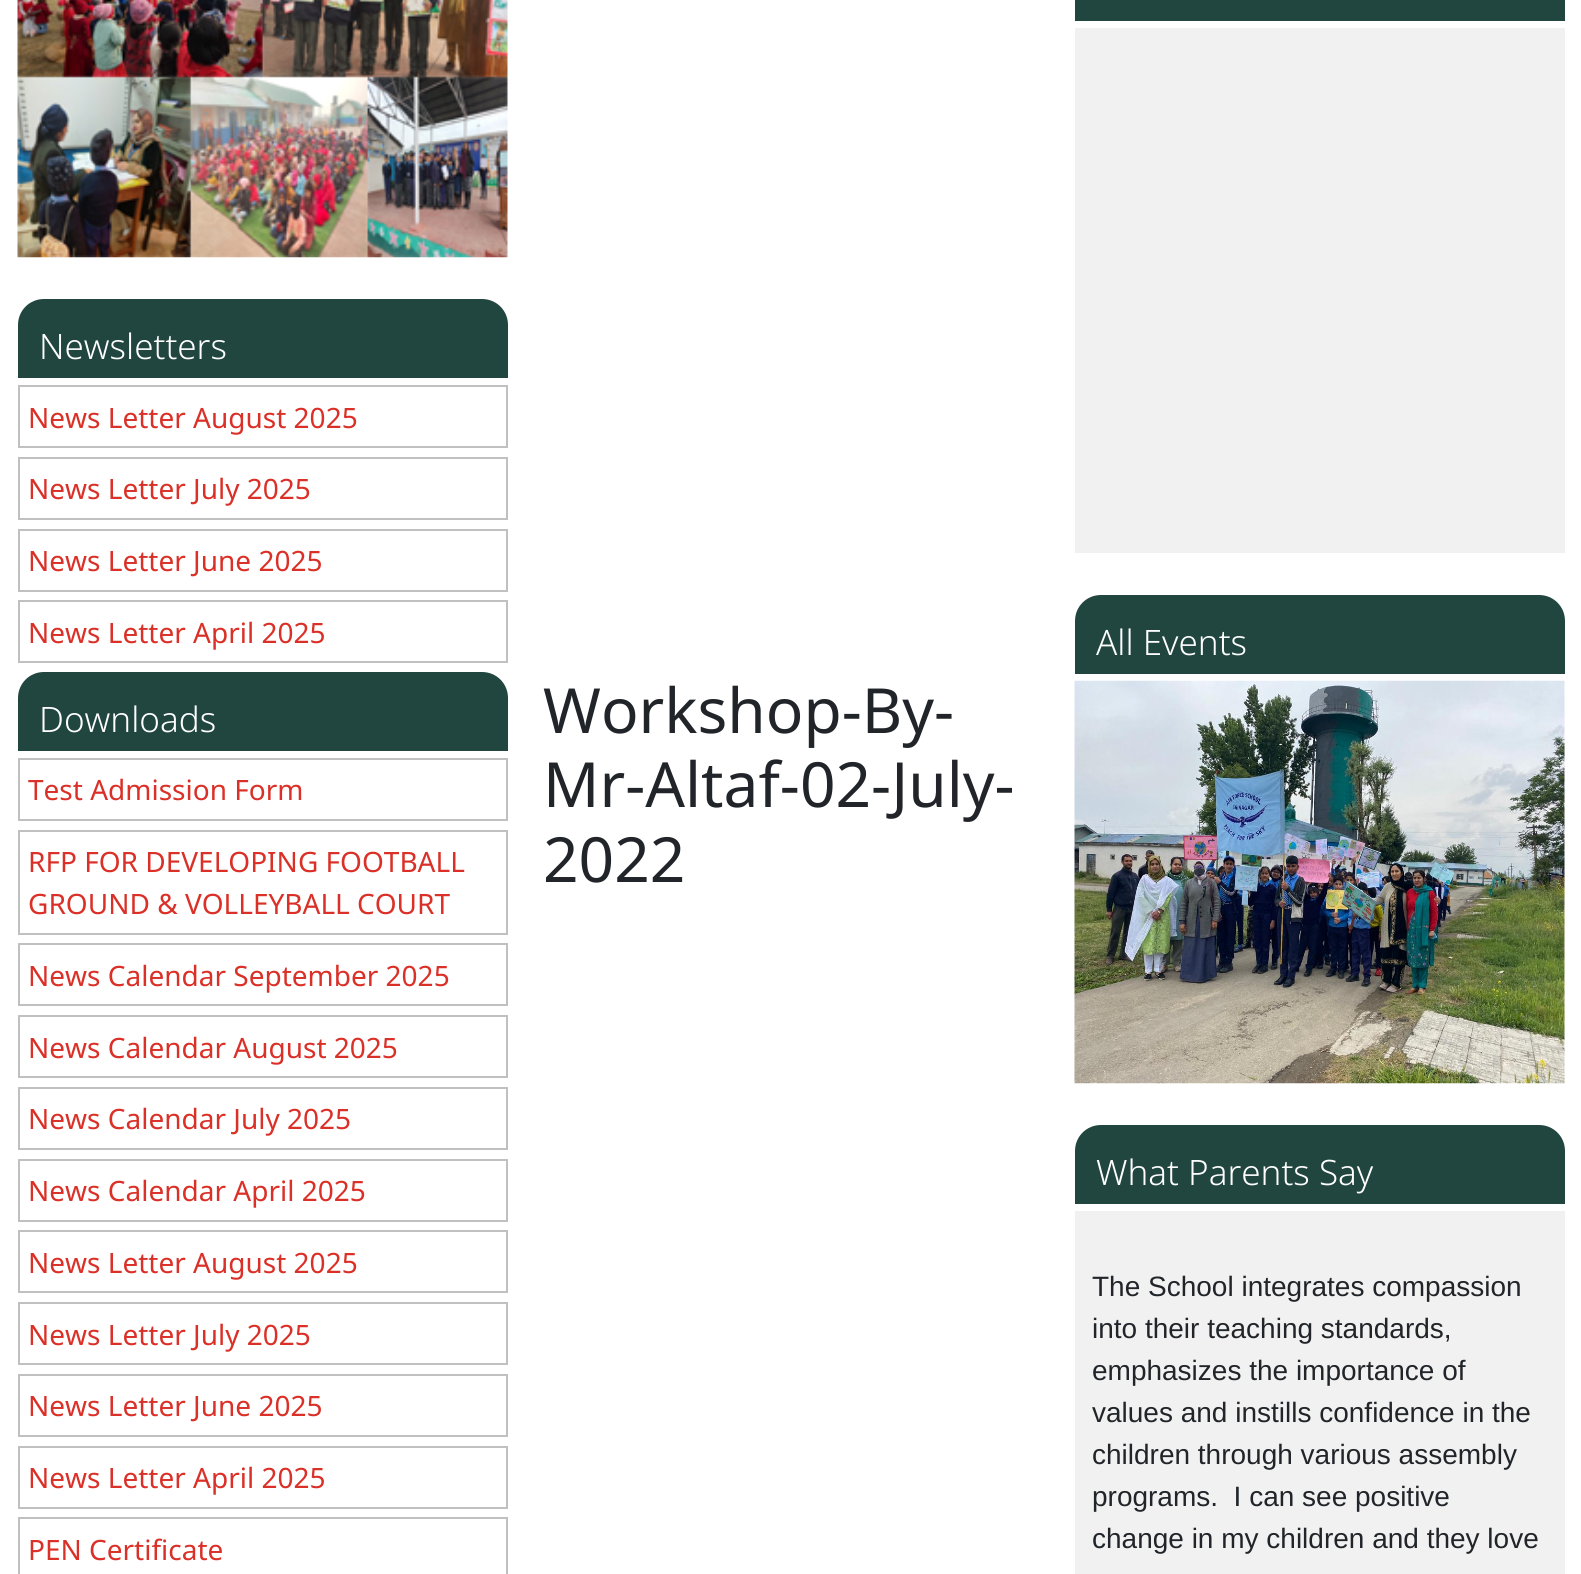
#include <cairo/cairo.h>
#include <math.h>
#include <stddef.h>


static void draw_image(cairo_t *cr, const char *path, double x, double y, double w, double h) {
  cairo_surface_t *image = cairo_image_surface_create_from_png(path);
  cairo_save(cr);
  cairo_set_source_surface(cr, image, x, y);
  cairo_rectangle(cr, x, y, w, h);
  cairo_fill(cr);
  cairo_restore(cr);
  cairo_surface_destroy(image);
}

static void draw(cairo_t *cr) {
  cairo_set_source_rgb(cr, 1, 1, 1);
  cairo_paint(cr);
  draw_image(cr, "images/1.png", 17, 0, 491, 258);
  cairo_set_source_rgb(cr, 33 / 255.0, 70 / 255.0, 63 / 255.0);
  cairo_new_path(cr);
  cairo_move_to(cr, 44, 299);
  cairo_line_to(cr, 482, 299);
  cairo_curve_to(cr, 496.5, 299, 508, 310.5, 508, 325);
  cairo_line_to(cr, 508, 378);
  cairo_line_to(cr, 18, 378);
  cairo_line_to(cr, 18, 325);
  cairo_curve_to(cr, 18, 310.5, 29.5, 299, 44, 299);
  cairo_close_path(cr);
  cairo_fill(cr);
  cairo_rectangle(cr, 19, 386, 488, 61);
  cairo_set_source_rgb(cr, 192 / 255.0, 192 / 255.0, 192 / 255.0);
  cairo_stroke(cr);
  cairo_rectangle(cr, 19, 458, 488, 61);
  cairo_stroke(cr);
  cairo_rectangle(cr, 19, 530, 488, 61);
  cairo_stroke(cr);
  cairo_rectangle(cr, 19, 601, 488, 61);
  cairo_stroke(cr);
  cairo_set_source_rgb(cr, 33 / 255.0, 70 / 255.0, 63 / 255.0);
  cairo_new_path(cr);
  cairo_move_to(cr, 44, 672);
  cairo_line_to(cr, 482, 672);
  cairo_curve_to(cr, 496.5, 672, 508, 683.5, 508, 698);
  cairo_line_to(cr, 508, 751);
  cairo_line_to(cr, 18, 751);
  cairo_line_to(cr, 18, 698);
  cairo_curve_to(cr, 18, 683.5, 29.5, 672, 44, 672);
  cairo_close_path(cr);
  cairo_fill(cr);
  cairo_rectangle(cr, 19, 759, 488, 61);
  cairo_set_source_rgb(cr, 192 / 255.0, 192 / 255.0, 192 / 255.0);
  cairo_stroke(cr);
  cairo_rectangle(cr, 19, 831, 488, 103);
  cairo_stroke(cr);
  cairo_rectangle(cr, 19, 944, 488, 61);
  cairo_stroke(cr);
  cairo_rectangle(cr, 19, 1016, 488, 61);
  cairo_stroke(cr);
  cairo_rectangle(cr, 19, 1088, 488, 61);
  cairo_stroke(cr);
  cairo_rectangle(cr, 19, 1160, 488, 61);
  cairo_stroke(cr);
  cairo_rectangle(cr, 19, 1231, 488, 61);
  cairo_stroke(cr);
  cairo_rectangle(cr, 19, 1303, 488, 61);
  cairo_stroke(cr);
  cairo_rectangle(cr, 19, 1375, 488, 61);
  cairo_stroke(cr);
  cairo_rectangle(cr, 19, 1447, 488, 61);
  cairo_stroke(cr);
  cairo_rectangle(cr, 19, 1518, 488, 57);
  cairo_stroke(cr);
  cairo_set_source_rgb(cr, 33 / 255.0, 70 / 255.0, 63 / 255.0);
  cairo_rectangle(cr, 1075, 0, 490, 21);
  cairo_fill(cr);
  cairo_set_source_rgb(cr, 241 / 255.0, 241 / 255.0, 241 / 255.0);
  cairo_rectangle(cr, 1075, 28, 490, 525);
  cairo_fill(cr);
  cairo_set_source_rgb(cr, 33 / 255.0, 70 / 255.0, 63 / 255.0);
  cairo_new_path(cr);
  cairo_move_to(cr, 1101, 595);
  cairo_line_to(cr, 1539, 595);
  cairo_curve_to(cr, 1553.5, 595, 1565, 606.5, 1565, 621);
  cairo_line_to(cr, 1565, 674);
  cairo_line_to(cr, 1075, 674);
  cairo_line_to(cr, 1075, 621);
  cairo_curve_to(cr, 1075, 606.5, 1086.5, 595, 1101, 595);
  cairo_close_path(cr);
  cairo_fill(cr);
  draw_image(cr, "images/2.png", 1074, 680, 491, 404);
  cairo_new_path(cr);
  cairo_move_to(cr, 1101, 1125);
  cairo_line_to(cr, 1539, 1125);
  cairo_curve_to(cr, 1553.5, 1125, 1565, 1136.5, 1565, 1151);
  cairo_line_to(cr, 1565, 1204);
  cairo_line_to(cr, 1075, 1204);
  cairo_line_to(cr, 1075, 1151);
  cairo_curve_to(cr, 1075, 1136.5, 1086.5, 1125, 1101, 1125);
  cairo_close_path(cr);
  cairo_fill(cr);
  cairo_set_source_rgb(cr, 241 / 255.0, 241 / 255.0, 241 / 255.0);
  cairo_rectangle(cr, 1075, 1211, 490, 363);
  cairo_fill(cr);
  cairo_select_font_face(cr, "Noto Sans Light", CAIRO_FONT_SLANT_NORMAL, CAIRO_FONT_WEIGHT_NORMAL);
  cairo_set_font_size(cr, 35);
  cairo_set_source_rgb(cr, 1, 1, 1);
  cairo_move_to(cr, 39, 359);
  cairo_show_text(cr, "Newsletters");
  cairo_select_font_face(cr, "Noto Sans", CAIRO_FONT_SLANT_NORMAL, CAIRO_FONT_WEIGHT_NORMAL);
  cairo_set_font_size(cr, 28);
  cairo_set_source_rgb(cr, 218 / 255.0, 48 / 255.0, 39 / 255.0);
  cairo_move_to(cr, 28, 428);
  cairo_show_text(cr, "News Letter August 2025");
  cairo_move_to(cr, 28, 499);
  cairo_show_text(cr, "News Letter July 2025");
  cairo_move_to(cr, 28, 571);
  cairo_show_text(cr, "News Letter June 2025");
  cairo_move_to(cr, 28, 643);
  cairo_show_text(cr, "News Letter April 2025");
  cairo_select_font_face(cr, "Noto Sans Light", CAIRO_FONT_SLANT_NORMAL, CAIRO_FONT_WEIGHT_NORMAL);
  cairo_set_font_size(cr, 35);
  cairo_set_source_rgb(cr, 1, 1, 1);
  cairo_move_to(cr, 39, 732);
  cairo_show_text(cr, "Downloads");
  cairo_select_font_face(cr, "Noto Sans", CAIRO_FONT_SLANT_NORMAL, CAIRO_FONT_WEIGHT_NORMAL);
  cairo_set_font_size(cr, 28);
  cairo_set_source_rgb(cr, 218 / 255.0, 48 / 255.0, 39 / 255.0);
  cairo_move_to(cr, 28, 800);
  cairo_show_text(cr, "Test Admission Form");
  cairo_move_to(cr, 28, 872);
  cairo_show_text(cr, "RFP FOR DEVELOPING FOOTBALL");
  cairo_move_to(cr, 28, 914);
  cairo_show_text(cr, "GROUND & VOLLEYBALL COURT");
  cairo_move_to(cr, 28, 986);
  cairo_show_text(cr, "News Calendar September 2025");
  cairo_move_to(cr, 28, 1058);
  cairo_show_text(cr, "News Calendar August 2025");
  cairo_move_to(cr, 28, 1129);
  cairo_show_text(cr, "News Calendar July 2025");
  cairo_move_to(cr, 28, 1201);
  cairo_show_text(cr, "News Calendar April 2025");
  cairo_move_to(cr, 28, 1273);
  cairo_show_text(cr, "News Letter August 2025");
  cairo_move_to(cr, 28, 1345);
  cairo_show_text(cr, "News Letter July 2025");
  cairo_move_to(cr, 28, 1416);
  cairo_show_text(cr, "News Letter June 2025");
  cairo_move_to(cr, 28, 1488);
  cairo_show_text(cr, "News Letter April 2025");
  cairo_move_to(cr, 28, 1560);
  cairo_show_text(cr, "PEN Certificate");
  cairo_set_font_size(cr, 62.25);
  cairo_set_source_rgb(cr, 33 / 255.0, 37 / 255.0, 41 / 255.0);
  cairo_move_to(cr, 543, 733);
  cairo_show_text(cr, "Workshop-By-");
  cairo_move_to(cr, 543, 807);
  cairo_show_text(cr, "Mr-Altaf-02-July-");
  cairo_move_to(cr, 543, 882);
  cairo_show_text(cr, "2022");
  cairo_select_font_face(cr, "Noto Sans Light", CAIRO_FONT_SLANT_NORMAL, CAIRO_FONT_WEIGHT_NORMAL);
  cairo_set_font_size(cr, 35);
  cairo_set_source_rgb(cr, 1, 1, 1);
  cairo_move_to(cr, 1096, 655);
  cairo_show_text(cr, "All Events");
  cairo_move_to(cr, 1096, 1185);
  cairo_show_text(cr, "What Parents Say");
  cairo_select_font_face(cr, "Liberation Sans", CAIRO_FONT_SLANT_NORMAL, CAIRO_FONT_WEIGHT_NORMAL);
  cairo_set_font_size(cr, 28);
  cairo_set_source_rgb(cr, 33 / 255.0, 37 / 255.0, 41 / 255.0);
  cairo_move_to(cr, 1092, 1296);
  cairo_show_text(cr, "The School integrates compassion");
  cairo_move_to(cr, 1092, 1338);
  cairo_show_text(cr, "into their teaching standards,");
  cairo_move_to(cr, 1092, 1380);
  cairo_show_text(cr, "emphasizes the importance of");
  cairo_move_to(cr, 1092, 1422);
  cairo_show_text(cr, "values and instills confidence in the");
  cairo_move_to(cr, 1092, 1464);
  cairo_show_text(cr, "children through various assembly");
  cairo_move_to(cr, 1092, 1506);
  cairo_show_text(cr, "programs.  I can see positive");
  cairo_move_to(cr, 1092, 1548);
  cairo_show_text(cr, "change in my children and they love");
}

int main(void) {
  cairo_surface_t *surface = cairo_image_surface_create(CAIRO_FORMAT_RGB24, 1581, 1574);
  cairo_t *cr = cairo_create(surface);
  cairo_font_options_t *options = cairo_font_options_create();
  cairo_font_options_set_hint_metrics(options, CAIRO_HINT_METRICS_OFF);
  cairo_font_options_set_hint_style(options, CAIRO_HINT_STYLE_NONE);
  cairo_set_font_options(cr, options);
  cairo_set_miter_limit(cr, 4);
  draw(cr);
  cairo_surface_write_to_png(surface, "out.png");
  cairo_font_options_destroy(options);
  cairo_destroy(cr);
  cairo_surface_destroy(surface);
  return 0;
}
